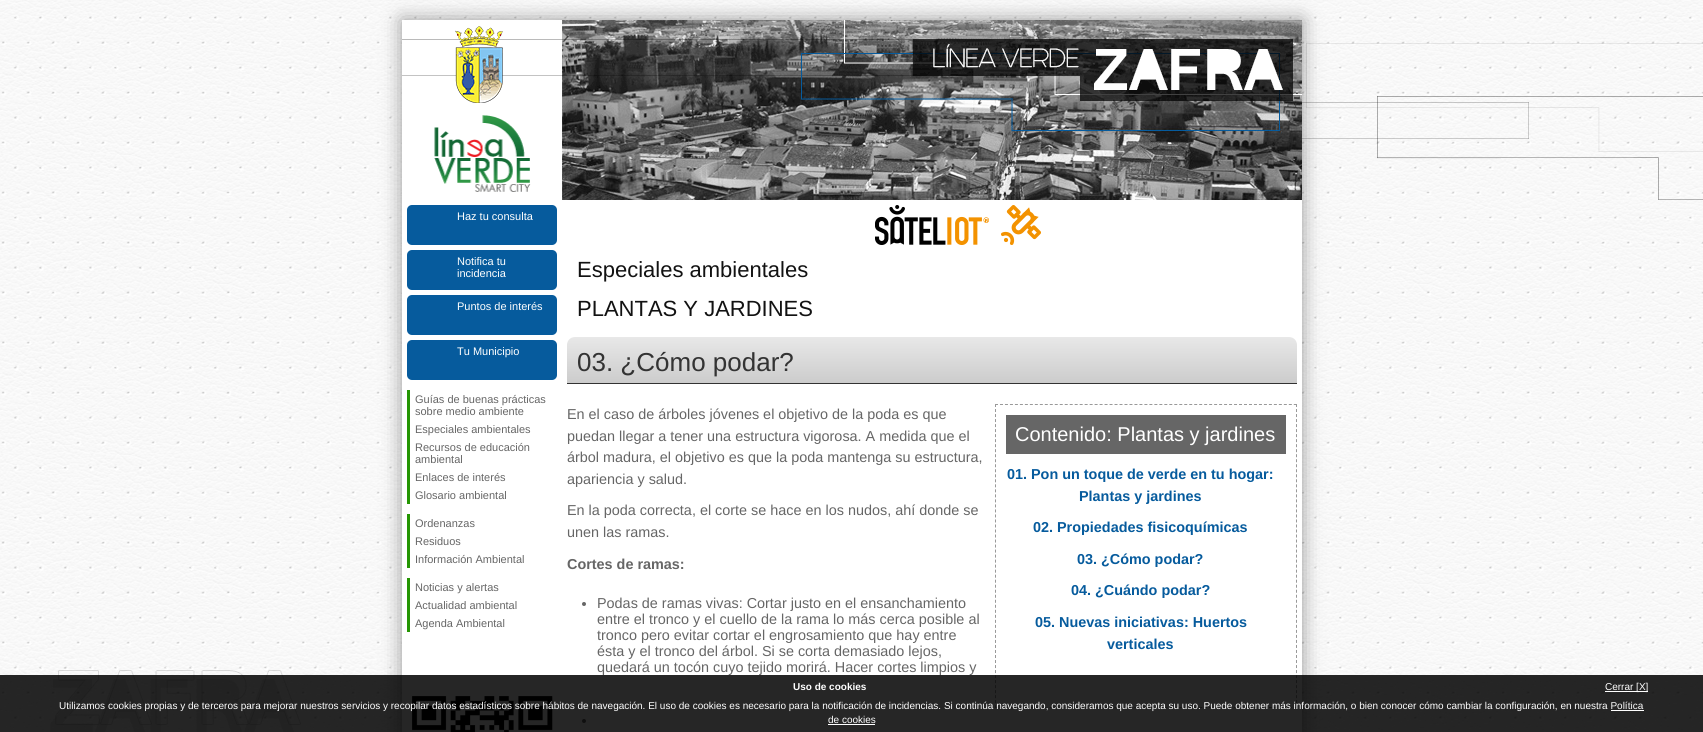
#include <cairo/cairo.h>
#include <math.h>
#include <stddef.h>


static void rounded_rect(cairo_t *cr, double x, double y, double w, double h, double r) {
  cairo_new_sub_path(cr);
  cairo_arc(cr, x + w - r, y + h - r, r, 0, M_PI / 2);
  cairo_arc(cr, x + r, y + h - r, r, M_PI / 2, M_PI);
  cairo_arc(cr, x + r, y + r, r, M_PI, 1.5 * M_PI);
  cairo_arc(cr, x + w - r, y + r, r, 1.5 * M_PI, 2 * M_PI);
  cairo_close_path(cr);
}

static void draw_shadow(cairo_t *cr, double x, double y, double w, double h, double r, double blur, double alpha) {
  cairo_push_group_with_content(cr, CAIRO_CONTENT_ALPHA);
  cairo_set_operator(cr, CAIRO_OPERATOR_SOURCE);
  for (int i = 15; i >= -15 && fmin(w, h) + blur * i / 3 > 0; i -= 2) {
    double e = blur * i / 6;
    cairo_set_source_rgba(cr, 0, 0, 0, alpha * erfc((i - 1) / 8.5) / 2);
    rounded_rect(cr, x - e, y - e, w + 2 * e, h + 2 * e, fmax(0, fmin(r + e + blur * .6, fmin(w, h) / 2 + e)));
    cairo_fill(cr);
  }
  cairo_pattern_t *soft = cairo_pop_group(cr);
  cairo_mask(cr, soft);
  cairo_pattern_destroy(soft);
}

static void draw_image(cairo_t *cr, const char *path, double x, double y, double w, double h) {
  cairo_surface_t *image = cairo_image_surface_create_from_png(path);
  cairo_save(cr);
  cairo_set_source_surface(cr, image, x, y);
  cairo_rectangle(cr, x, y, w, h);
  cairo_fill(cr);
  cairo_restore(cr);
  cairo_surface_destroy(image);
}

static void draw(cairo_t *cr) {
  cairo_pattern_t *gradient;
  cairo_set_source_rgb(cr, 1, 1, 1);
  cairo_paint(cr);
  draw_image(cr, "images/1.png", 0, 0, 1703, 732);
  cairo_set_source_rgb(cr, 0, 0, 0);
  draw_shadow(cr, 402, 20, 900, 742, 0, 10, 0.4);
  cairo_set_source_rgb(cr, 1, 1, 1);
  cairo_rectangle(cr, 402, 110, 900, 622);
  cairo_fill(cr);
  draw_image(cr, "images/2.png", 402, 20, 900, 90);
  draw_image(cr, "images/3.png", 434, 115, 97, 77);
  draw_image(cr, "images/4.png", 562, 110, 740, 90);
  draw_image(cr, "images/5.png", 875, 205, 166, 40);
  cairo_set_source_rgb(cr, 6 / 255.0, 91 / 255.0, 157 / 255.0);
  rounded_rect(cr, 407, 205, 150, 40, 5);
  cairo_fill(cr);
  rounded_rect(cr, 407, 250, 150, 40, 5);
  cairo_fill(cr);
  rounded_rect(cr, 407, 295, 150, 40, 5);
  cairo_fill(cr);
  rounded_rect(cr, 407, 340, 150, 40, 5);
  cairo_fill(cr);
  cairo_set_source_rgb(cr, 37 / 255.0, 150 / 255.0, 3 / 255.0);
  cairo_rectangle(cr, 407, 390, 3, 114);
  cairo_fill(cr);
  cairo_rectangle(cr, 407, 514, 3, 54);
  cairo_fill(cr);
  cairo_rectangle(cr, 407, 578, 3, 54);
  cairo_fill(cr);
  draw_image(cr, "images/6.png", 412, 696, 141, 36);
  gradient = cairo_pattern_create_linear(932, 337, 932, 383);
  cairo_pattern_add_color_stop_rgba(gradient, 0, 232 / 255.0, 232 / 255.0, 232 / 255.0, 1);
  cairo_pattern_add_color_stop_rgba(gradient, 1, 204 / 255.0, 204 / 255.0, 204 / 255.0, 1);
  cairo_set_source(cr, gradient);
  cairo_pattern_destroy(gradient);
  cairo_new_path(cr);
  cairo_move_to(cr, 575, 337);
  cairo_line_to(cr, 1289, 337);
  cairo_curve_to(cr, 1293.5, 337, 1297, 340.5, 1297, 345);
  cairo_line_to(cr, 1297, 383);
  cairo_line_to(cr, 567, 383);
  cairo_line_to(cr, 567, 345);
  cairo_curve_to(cr, 567, 340.5, 570.5, 337, 575, 337);
  cairo_close_path(cr);
  cairo_fill(cr);
  cairo_set_source_rgb(cr, 51 / 255.0, 51 / 255.0, 51 / 255.0);
  cairo_rectangle(cr, 567, 383, 730, 1);
  cairo_fill(cr);
  cairo_new_path(cr);
  cairo_move_to(cr, 995, 404.5);
  cairo_line_to(cr, 1297, 404.5);
  cairo_set_source_rgb(cr, 153 / 255.0, 153 / 255.0, 153 / 255.0);
  cairo_set_line_width(cr, 1);
  cairo_set_dash(cr, (double[]){3, 1.98}, 2, 0);
  cairo_stroke(cr);
  cairo_new_path(cr);
  cairo_move_to(cr, 1296.5, 404);
  cairo_line_to(cr, 1296.5, 708);
  cairo_set_dash(cr, (double[]){3, 2.02}, 2, 0);
  cairo_stroke(cr);
  cairo_new_path(cr);
  cairo_move_to(cr, 995, 707.5);
  cairo_line_to(cr, 1297, 707.5);
  cairo_set_dash(cr, (double[]){3, 1.98}, 2, 0);
  cairo_stroke(cr);
  cairo_new_path(cr);
  cairo_move_to(cr, 995.5, 404);
  cairo_line_to(cr, 995.5, 708);
  cairo_set_dash(cr, (double[]){3, 2.02}, 2, 0);
  cairo_stroke(cr);
  cairo_set_source_rgb(cr, 102 / 255.0, 102 / 255.0, 102 / 255.0);
  cairo_rectangle(cr, 1006, 415, 280, 39);
  cairo_fill(cr);
  cairo_arc(cr, 584, 604, 2, 0, 2 * M_PI);
  cairo_fill(cr);
  cairo_arc(cr, 584, 721, 2, 0, 2 * M_PI);
  cairo_fill(cr);
  cairo_set_source_rgba(cr, 0, 0, 0, 0.85);
  cairo_rectangle(cr, 0, 675, 1703, 57);
  cairo_fill(cr);
  cairo_set_source_rgb(cr, 1, 1, 1);
  cairo_rectangle(cr, 1605, 691, 43, 1);
  cairo_fill(cr);
  cairo_rectangle(cr, 1611, 710, 33, 1);
  cairo_fill(cr);
  cairo_rectangle(cr, 828, 724, 47, 1);
  cairo_fill(cr);
  cairo_select_font_face(cr, "Liberation Sans", CAIRO_FONT_SLANT_NORMAL, CAIRO_FONT_WEIGHT_NORMAL);
  cairo_set_font_size(cr, 11);
  cairo_move_to(cr, 457, 220);
  cairo_show_text(cr, "Haz tu consulta");
  cairo_move_to(cr, 457, 265);
  cairo_show_text(cr, "Notifica tu");
  cairo_move_to(cr, 457, 277);
  cairo_show_text(cr, "incidencia");
  cairo_move_to(cr, 457, 310);
  cairo_show_text(cr, "Puntos de interés");
  cairo_move_to(cr, 457, 355);
  cairo_show_text(cr, "Tu Municipio");
  cairo_set_source_rgb(cr, 102 / 255.0, 102 / 255.0, 102 / 255.0);
  cairo_move_to(cr, 415, 403);
  cairo_show_text(cr, "Guías de buenas prácticas");
  cairo_move_to(cr, 415, 415);
  cairo_show_text(cr, "sobre medio ambiente");
  cairo_move_to(cr, 415, 433);
  cairo_show_text(cr, "Especiales ambientales");
  cairo_move_to(cr, 415, 451);
  cairo_show_text(cr, "Recursos de educación");
  cairo_move_to(cr, 415, 463);
  cairo_show_text(cr, "ambiental");
  cairo_move_to(cr, 415, 481);
  cairo_show_text(cr, "Enlaces de interés");
  cairo_move_to(cr, 415, 499);
  cairo_show_text(cr, "Glosario ambiental");
  cairo_move_to(cr, 415, 527);
  cairo_show_text(cr, "Ordenanzas");
  cairo_move_to(cr, 415, 545);
  cairo_show_text(cr, "Residuos");
  cairo_move_to(cr, 415, 563);
  cairo_show_text(cr, "Información Ambiental");
  cairo_move_to(cr, 415, 591);
  cairo_show_text(cr, "Noticias y alertas");
  cairo_move_to(cr, 415, 609);
  cairo_show_text(cr, "Actualidad ambiental");
  cairo_move_to(cr, 415, 627);
  cairo_show_text(cr, "Agenda Ambiental");
  cairo_set_font_size(cr, 22);
  cairo_set_source_rgb(cr, 18 / 255.0, 18 / 255.0, 18 / 255.0);
  cairo_move_to(cr, 577, 277);
  cairo_show_text(cr, "Especiales ambientales");
  cairo_move_to(cr, 577, 316);
  cairo_show_text(cr, "PLANTAS Y JARDINES");
  cairo_set_font_size(cr, 26);
  cairo_set_source_rgb(cr, 51 / 255.0, 51 / 255.0, 51 / 255.0);
  cairo_move_to(cr, 577, 371);
  cairo_show_text(cr, "03. ¿Cómo podar?");
  cairo_set_font_size(cr, 14.4);
  cairo_set_source_rgb(cr, 102 / 255.0, 102 / 255.0, 102 / 255.0);
  cairo_move_to(cr, 567, 419);
  cairo_show_text(cr, "En el caso de árboles jóvenes el objetivo de la poda es que");
  cairo_move_to(cr, 567, 441);
  cairo_show_text(cr, "puedan llegar a tener una estructura vigorosa. A medida que el");
  cairo_move_to(cr, 567, 462);
  cairo_show_text(cr, "árbol madura, el objetivo es que la poda mantenga su estructura,");
  cairo_move_to(cr, 567, 484);
  cairo_show_text(cr, "apariencia y salud.");
  cairo_set_font_size(cr, 20);
  cairo_set_source_rgb(cr, 1, 1, 1);
  cairo_move_to(cr, 1015, 441);
  cairo_show_text(cr, "Contenido: Plantas y jardines");
  cairo_select_font_face(cr, "Liberation Sans", CAIRO_FONT_SLANT_NORMAL, CAIRO_FONT_WEIGHT_BOLD);
  cairo_set_font_size(cr, 14.4);
  cairo_set_source_rgb(cr, 6 / 255.0, 91 / 255.0, 157 / 255.0);
  cairo_move_to(cr, 1007, 479);
  cairo_show_text(cr, "01. Pon un toque de verde en tu hogar:");
  cairo_move_to(cr, 1079, 501);
  cairo_show_text(cr, "Plantas y jardines");
  cairo_move_to(cr, 1033, 532);
  cairo_show_text(cr, "02. Propiedades fisicoquímicas");
  cairo_move_to(cr, 1077, 564);
  cairo_show_text(cr, "03. ¿Cómo podar?");
  cairo_move_to(cr, 1071, 595);
  cairo_show_text(cr, "04. ¿Cuándo podar?");
  cairo_move_to(cr, 1035, 627);
  cairo_show_text(cr, "05. Nuevas iniciativas: Huertos");
  cairo_move_to(cr, 1107, 649);
  cairo_show_text(cr, "verticales");
  cairo_select_font_face(cr, "Liberation Sans", CAIRO_FONT_SLANT_NORMAL, CAIRO_FONT_WEIGHT_NORMAL);
  cairo_set_source_rgb(cr, 102 / 255.0, 102 / 255.0, 102 / 255.0);
  cairo_move_to(cr, 567, 515);
  cairo_show_text(cr, "En la poda correcta, el corte se hace en los nudos, ahí donde se");
  cairo_move_to(cr, 567, 537);
  cairo_show_text(cr, "unen las ramas.");
  cairo_select_font_face(cr, "Liberation Sans", CAIRO_FONT_SLANT_NORMAL, CAIRO_FONT_WEIGHT_BOLD);
  cairo_move_to(cr, 567, 569);
  cairo_show_text(cr, "Cortes de ramas:");
  cairo_select_font_face(cr, "Liberation Sans", CAIRO_FONT_SLANT_NORMAL, CAIRO_FONT_WEIGHT_NORMAL);
  cairo_move_to(cr, 597, 608);
  cairo_show_text(cr, "Podas de ramas vivas: Cortar justo en el ensanchamiento");
  cairo_move_to(cr, 597, 624);
  cairo_show_text(cr, "entre el tronco y el cuello de la rama lo más cerca posible al");
  cairo_move_to(cr, 597, 640);
  cairo_show_text(cr, "tronco pero evitar cortar el engrosamiento que hay entre");
  cairo_move_to(cr, 597, 656);
  cairo_show_text(cr, "ésta y el tronco del árbol. Si se corta demasiado lejos,");
  cairo_move_to(cr, 597, 672);
  cairo_show_text(cr, "quedará un tocón cuyo tejido morirá. Hacer cortes limpios y");
  cairo_select_font_face(cr, "Liberation Sans", CAIRO_FONT_SLANT_NORMAL, CAIRO_FONT_WEIGHT_BOLD);
  cairo_set_font_size(cr, 10);
  cairo_set_source_rgb(cr, 1, 1, 1);
  cairo_move_to(cr, 793, 690);
  cairo_show_text(cr, "Uso de cookies");
  cairo_select_font_face(cr, "Liberation Sans", CAIRO_FONT_SLANT_NORMAL, CAIRO_FONT_WEIGHT_NORMAL);
  cairo_move_to(cr, 1605, 690);
  cairo_show_text(cr, "Cerrar [X]");
  cairo_move_to(cr, 59, 709);
  cairo_show_text(cr, "Utilizamos cookies propias y de terceros para mejorar nuestros servicios y recopilar datos estadísticos sobre hábitos de navegación. El uso de cookies es necesario para la notificación de incidencias. Si continúa navegando, consideramos que acepta su uso. Puede obtener más información, o bien conocer cómo cambiar la configuración, en nuestra Política");
  cairo_move_to(cr, 828, 723);
  cairo_show_text(cr, "de cookies");
}

int main(void) {
  cairo_surface_t *surface = cairo_image_surface_create(CAIRO_FORMAT_RGB24, 1703, 732);
  cairo_t *cr = cairo_create(surface);
  cairo_font_options_t *options = cairo_font_options_create();
  cairo_font_options_set_hint_metrics(options, CAIRO_HINT_METRICS_OFF);
  cairo_font_options_set_hint_style(options, CAIRO_HINT_STYLE_NONE);
  cairo_set_font_options(cr, options);
  cairo_set_miter_limit(cr, 4);
  draw(cr);
  cairo_surface_write_to_png(surface, "out.png");
  cairo_font_options_destroy(options);
  cairo_destroy(cr);
  cairo_surface_destroy(surface);
  return 0;
}
